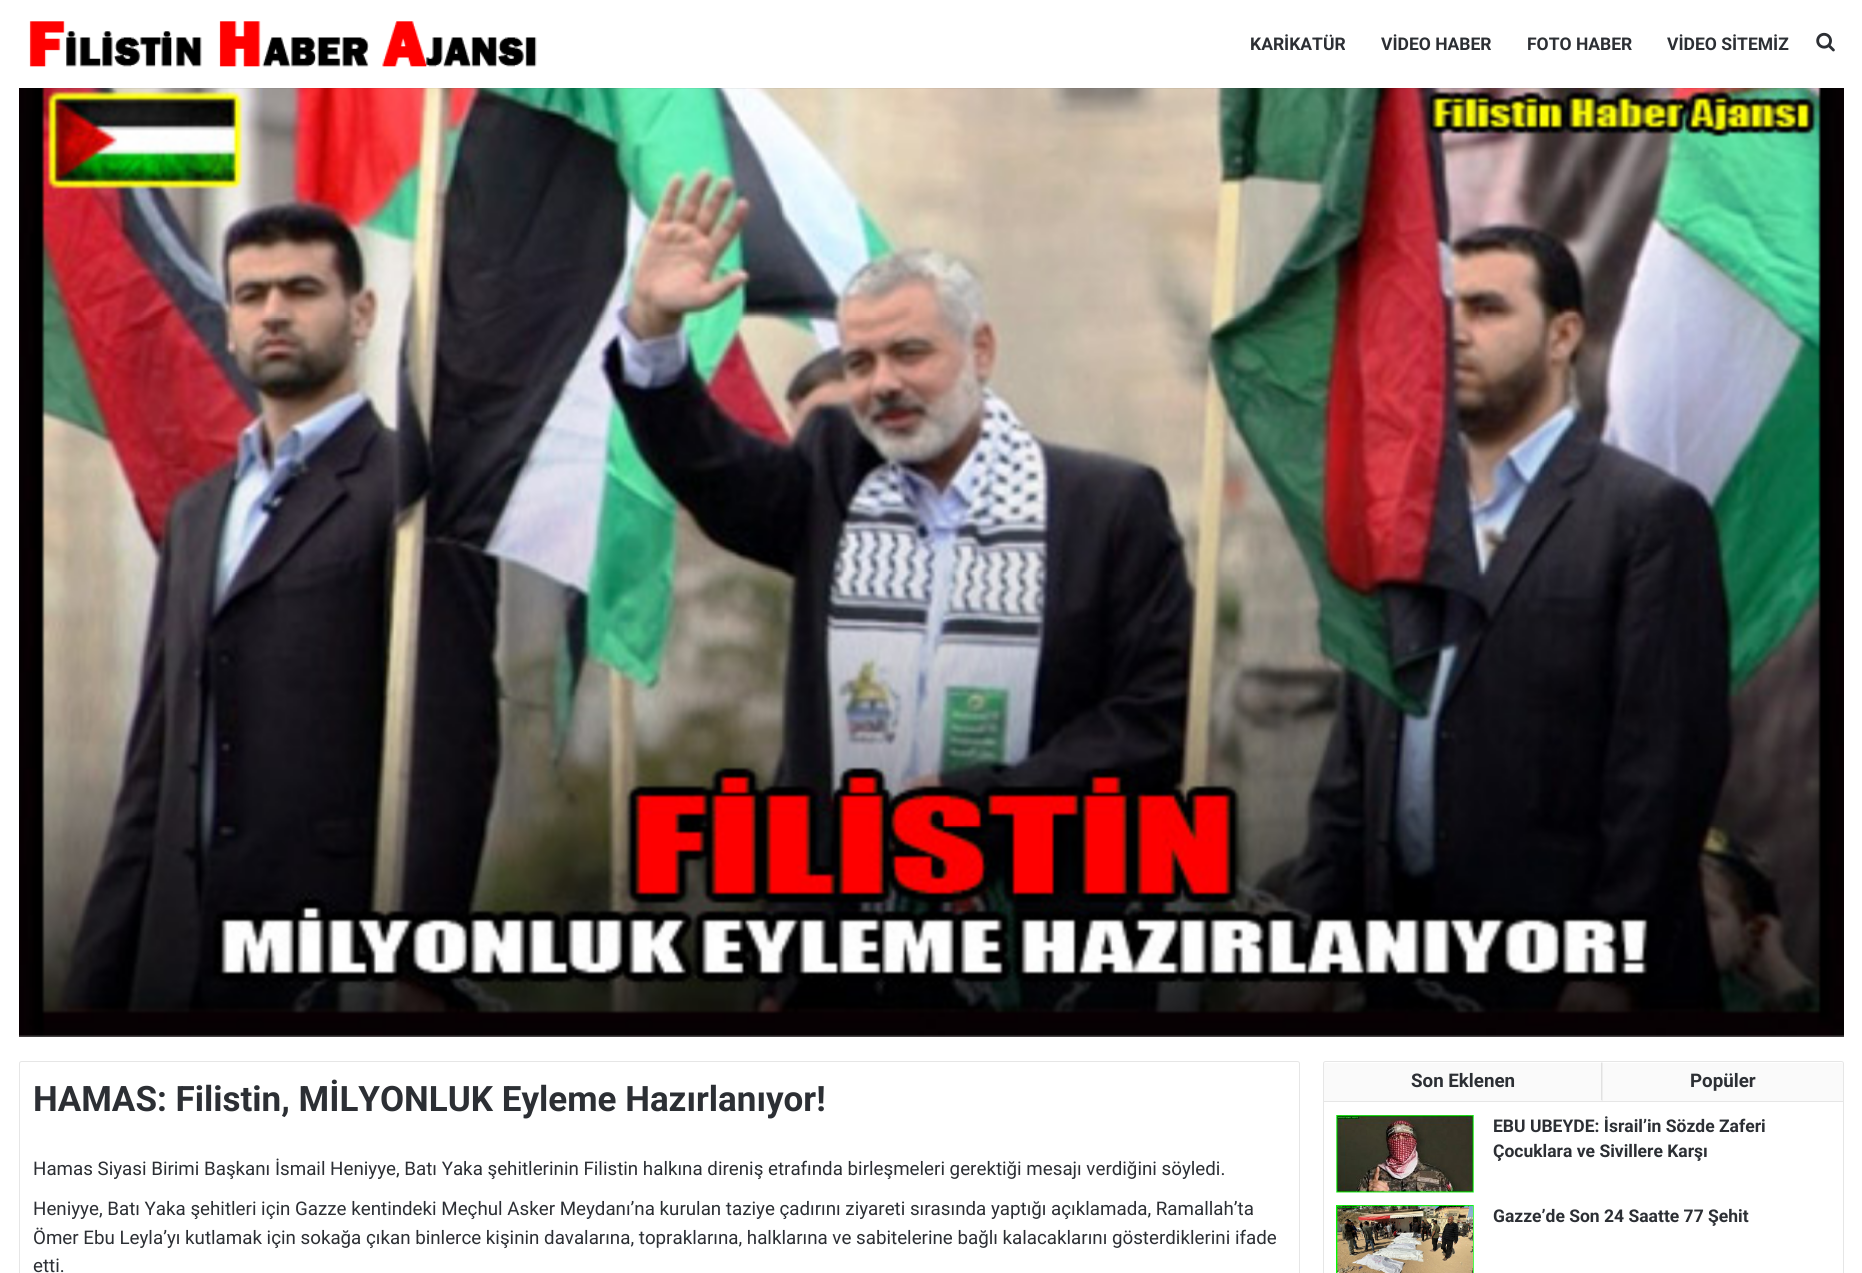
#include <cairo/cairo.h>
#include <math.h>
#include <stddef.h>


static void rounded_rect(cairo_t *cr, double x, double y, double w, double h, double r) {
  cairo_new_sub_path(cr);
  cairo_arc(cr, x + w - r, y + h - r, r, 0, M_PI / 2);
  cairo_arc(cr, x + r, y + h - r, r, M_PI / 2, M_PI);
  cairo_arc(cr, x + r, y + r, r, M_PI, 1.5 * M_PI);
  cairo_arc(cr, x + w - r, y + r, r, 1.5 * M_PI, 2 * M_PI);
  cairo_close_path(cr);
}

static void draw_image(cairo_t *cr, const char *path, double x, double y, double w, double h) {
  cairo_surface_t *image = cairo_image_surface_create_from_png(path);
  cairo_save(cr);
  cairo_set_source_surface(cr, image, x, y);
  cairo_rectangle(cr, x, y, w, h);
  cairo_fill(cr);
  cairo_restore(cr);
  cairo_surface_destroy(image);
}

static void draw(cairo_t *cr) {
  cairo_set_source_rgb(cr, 1, 1, 1);
  cairo_paint(cr);
  draw_image(cr, "images/1.png", 29, 21, 508, 46);
  draw_image(cr, "images/2.png", 1816, 32, 19, 20);
  draw_image(cr, "images/3.png", 19, 88, 1825, 949);
  rounded_rect(cr, 19.5, 1061.5, 1280, 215, 2);
  cairo_set_source_rgb(cr, 230 / 255.0, 230 / 255.0, 230 / 255.0);
  cairo_set_line_width(cr, 1);
  cairo_stroke(cr);
  rounded_rect(cr, 1323.5, 1061.5, 520, 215, 2);
  cairo_stroke(cr);
  cairo_rectangle(cr, 1324, 1101, 519, 1);
  cairo_fill(cr);
  cairo_set_source_rgb(cr, 250 / 255.0, 250 / 255.0, 250 / 255.0);
  cairo_rectangle(cr, 1324, 1063, 519, 38);
  cairo_fill(cr);
  cairo_set_source_rgb(cr, 225 / 255.0, 225 / 255.0, 225 / 255.0);
  cairo_new_path(cr);
  cairo_move_to(cr, 1602.5, 1062.5);
  cairo_line_to(cr, 1602.5, 1101);
  cairo_line_to(cr, 1601, 1100);
  cairo_line_to(cr, 1601, 1062.5);
  cairo_close_path(cr);
  cairo_fill(cr);
  draw_image(cr, "images/4.png", 1336, 1115, 138, 78);
  draw_image(cr, "images/5.png", 1336, 1205, 138, 68);
  cairo_select_font_face(cr, "Roboto", CAIRO_FONT_SLANT_NORMAL, CAIRO_FONT_WEIGHT_BOLD);
  cairo_set_font_size(cr, 17.5);
  cairo_set_source_rgb(cr, 44 / 255.0, 47 / 255.0, 52 / 255.0);
  cairo_move_to(cr, 1250, 50);
  cairo_show_text(cr, "KARİKATÜR");
  cairo_move_to(cr, 1381, 50);
  cairo_show_text(cr, "VİDEO HABER");
  cairo_move_to(cr, 1527, 50);
  cairo_show_text(cr, "FOTO HABER");
  cairo_move_to(cr, 1667, 50);
  cairo_show_text(cr, "VİDEO SİTEMİZ");
  cairo_set_font_size(cr, 35);
  cairo_move_to(cr, 33, 1111);
  cairo_show_text(cr, "HAMAS: Filistin, MİLYONLUK Eyleme Hazırlanıyor!");
  cairo_select_font_face(cr, "Roboto", CAIRO_FONT_SLANT_NORMAL, CAIRO_FONT_WEIGHT_NORMAL);
  cairo_set_font_size(cr, 18.75);
  cairo_move_to(cr, 33, 1175);
  cairo_show_text(cr, "Hamas Siyasi Birimi Başkanı İsmail Heniyye, Batı Yaka şehitlerinin Filistin halkına direniş etrafında birleşmeleri gerektiği mesajı verdiğini söyledi.");
  cairo_move_to(cr, 33, 1215);
  cairo_show_text(cr, "Heniyye, Batı Yaka şehitleri için Gazze kentindeki Meçhul Asker Meydanı’na kurulan taziye çadırını ziyareti sırasında yaptığı açıklamada, Ramallah’ta");
  cairo_move_to(cr, 33, 1244);
  cairo_show_text(cr, "Ömer Ebu Leyla’yı kutlamak için sokağa çıkan binlerce kişinin davalarına, topraklarına, halklarına ve sabitelerine bağlı kalacaklarını gösterdiklerini ifade");
  cairo_move_to(cr, 33, 1272);
  cairo_show_text(cr, "etti.");
  cairo_select_font_face(cr, "Roboto", CAIRO_FONT_SLANT_NORMAL, CAIRO_FONT_WEIGHT_BOLD);
  cairo_move_to(cr, 1411, 1087);
  cairo_show_text(cr, "Son Eklenen");
  cairo_move_to(cr, 1690, 1087);
  cairo_show_text(cr, "Popüler");
  cairo_set_font_size(cr, 17.5);
  cairo_move_to(cr, 1493, 1132);
  cairo_show_text(cr, "EBU UBEYDE: İsrail’in Sözde Zaferi");
  cairo_move_to(cr, 1493, 1157);
  cairo_show_text(cr, "Çocuklara ve Sivillere Karşı");
  cairo_move_to(cr, 1493, 1222);
  cairo_show_text(cr, "Gazze’de Son 24 Saatte 77 Şehit");
}

int main(void) {
  cairo_surface_t *surface = cairo_image_surface_create(CAIRO_FORMAT_RGB24, 1862, 1273);
  cairo_t *cr = cairo_create(surface);
  cairo_font_options_t *options = cairo_font_options_create();
  cairo_font_options_set_hint_metrics(options, CAIRO_HINT_METRICS_OFF);
  cairo_font_options_set_hint_style(options, CAIRO_HINT_STYLE_NONE);
  cairo_set_font_options(cr, options);
  cairo_set_miter_limit(cr, 4);
  draw(cr);
  cairo_surface_write_to_png(surface, "out.png");
  cairo_font_options_destroy(options);
  cairo_destroy(cr);
  cairo_surface_destroy(surface);
  return 0;
}
